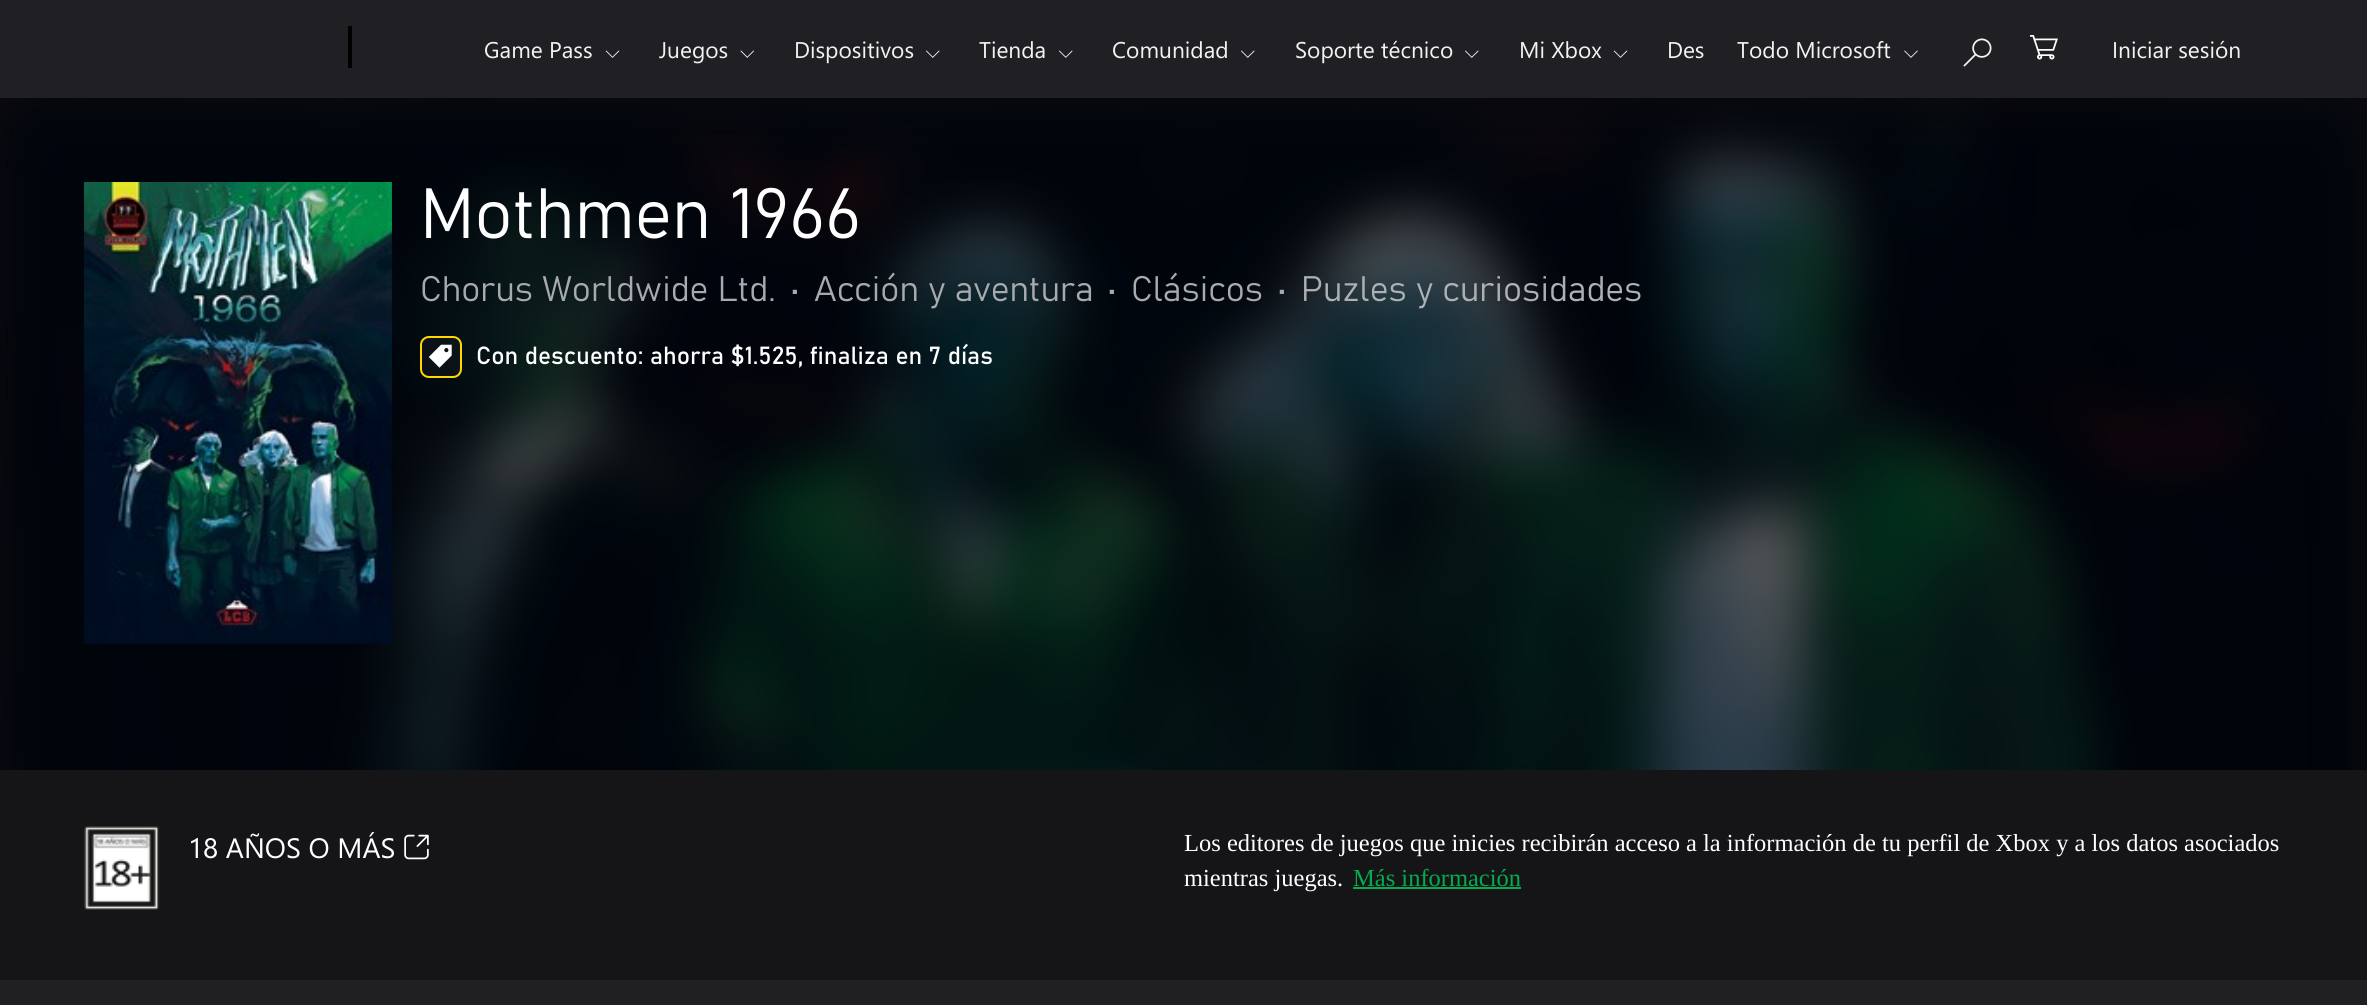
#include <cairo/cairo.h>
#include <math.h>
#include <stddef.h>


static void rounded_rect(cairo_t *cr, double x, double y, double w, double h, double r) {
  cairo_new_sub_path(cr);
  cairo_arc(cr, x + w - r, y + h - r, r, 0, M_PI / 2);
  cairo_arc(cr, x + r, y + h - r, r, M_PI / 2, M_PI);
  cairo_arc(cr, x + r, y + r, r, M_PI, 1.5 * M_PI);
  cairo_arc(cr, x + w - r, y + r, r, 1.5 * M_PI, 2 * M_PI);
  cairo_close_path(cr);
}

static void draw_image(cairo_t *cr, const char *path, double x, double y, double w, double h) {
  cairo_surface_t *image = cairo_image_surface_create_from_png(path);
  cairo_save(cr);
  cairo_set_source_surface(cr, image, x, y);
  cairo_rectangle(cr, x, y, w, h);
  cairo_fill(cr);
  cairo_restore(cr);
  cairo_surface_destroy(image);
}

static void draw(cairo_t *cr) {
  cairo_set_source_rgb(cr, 32 / 255.0, 31 / 255.0, 36 / 255.0);
  cairo_paint(cr);
  cairo_set_source_rgb(cr, 12 / 255.0, 11 / 255.0, 13 / 255.0);
  cairo_rectangle(cr, 0, 98, 2367, 672);
  cairo_fill(cr);
  cairo_set_source_rgb(cr, 0, 0, 0);
  cairo_rectangle(cr, 348, 26, 4, 42);
  cairo_fill(cr);
  draw_image(cr, "images/1.png", 605, 50, 15, 8);
  draw_image(cr, "images/2.png", 740, 50, 14, 8);
  draw_image(cr, "images/3.png", 926, 50, 14, 8);
  draw_image(cr, "images/3.png", 1059, 50, 14, 8);
  draw_image(cr, "images/3.png", 1241, 50, 14, 8);
  draw_image(cr, "images/3.png", 1465, 50, 14, 8);
  draw_image(cr, "images/1.png", 1613, 50, 15, 8);
  draw_image(cr, "images/4.png", 1904, 50, 14, 8);
  draw_image(cr, "images/5.png", 1963, 38, 29, 29);
  draw_image(cr, "images/6.png", 2030, 35, 28, 25);
  draw_image(cr, "images/7.png", 0, 98, 2367, 672);
  draw_image(cr, "images/8.png", 84, 182, 308, 462);
  cairo_set_source_rgba(cr, 32 / 255.0, 31 / 255.0, 36 / 255.0, 0.3);
  rounded_rect(cr, 421, 337, 40, 40, 8);
  cairo_fill_preserve(cr);
  cairo_set_source_rgb(cr, 1, 216 / 255.0, 0);
  cairo_stroke(cr);
  draw_image(cr, "images/9.png", 428, 344, 24, 24);
  cairo_set_source_rgb(cr, 21 / 255.0, 21 / 255.0, 23 / 255.0);
  cairo_rectangle(cr, 0, 770, 2367, 210);
  cairo_fill(cr);
  draw_image(cr, "images/10.png", 84, 826, 76, 84);
  draw_image(cr, "images/11.png", 404, 834, 25, 26);
  cairo_set_source_rgb(cr, 4 / 255.0, 171 / 255.0, 79 / 255.0);
  cairo_rectangle(cr, 1353, 887, 168, 2);
  cairo_fill(cr);
  cairo_select_font_face(cr, "Segoe UI", CAIRO_FONT_SLANT_NORMAL, CAIRO_FONT_WEIGHT_NORMAL);
  cairo_set_font_size(cr, 22.75);
  cairo_set_source_rgb(cr, 242 / 255.0, 242 / 255.0, 242 / 255.0);
  cairo_move_to(cr, 484, 58);
  cairo_show_text(cr, "Game Pass");
  cairo_move_to(cr, 659, 58);
  cairo_show_text(cr, "Juegos");
  cairo_move_to(cr, 794, 58);
  cairo_show_text(cr, "Dispositivos");
  cairo_move_to(cr, 979, 58);
  cairo_show_text(cr, "Tienda");
  cairo_move_to(cr, 1112, 58);
  cairo_show_text(cr, "Comunidad");
  cairo_move_to(cr, 1295, 58);
  cairo_show_text(cr, "Soporte técnico");
  cairo_move_to(cr, 1519, 58);
  cairo_show_text(cr, "Mi Xbox");
  cairo_move_to(cr, 1667, 58);
  cairo_show_text(cr, "Des");
  cairo_move_to(cr, 1737, 58);
  cairo_show_text(cr, "Todo Microsoft");
  cairo_move_to(cr, 2112, 58);
  cairo_show_text(cr, "Iniciar sesión");
  cairo_select_font_face(cr, "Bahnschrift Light", CAIRO_FONT_SLANT_NORMAL, CAIRO_FONT_WEIGHT_NORMAL);
  cairo_set_font_size(cr, 70);
  cairo_set_source_rgb(cr, 1, 1, 1);
  cairo_move_to(cr, 420, 238);
  cairo_show_text(cr, "Mothmen 1966");
  cairo_set_font_size(cr, 35);
  cairo_set_source_rgb(cr, 168 / 255.0, 171 / 255.0, 173 / 255.0);
  cairo_move_to(cr, 420, 301);
  cairo_show_text(cr, "Chorus Worldwide Ltd.");
  cairo_move_to(cr, 790, 301);
  cairo_show_text(cr, "•");
  cairo_move_to(cr, 814, 301);
  cairo_show_text(cr, "Acción y aventura");
  cairo_move_to(cr, 1107, 301);
  cairo_show_text(cr, "•");
  cairo_move_to(cr, 1131, 301);
  cairo_show_text(cr, "Clásicos");
  cairo_move_to(cr, 1277, 301);
  cairo_show_text(cr, "•");
  cairo_set_source_rgb(cr, 174 / 255.0, 177 / 255.0, 180 / 255.0);
  cairo_move_to(cr, 1301, 301);
  cairo_show_text(cr, "Puzles y curiosidades");
  cairo_select_font_face(cr, "Bahnschrift", CAIRO_FONT_SLANT_NORMAL, CAIRO_FONT_WEIGHT_NORMAL);
  cairo_set_font_size(cr, 24.5);
  cairo_set_source_rgb(cr, 1, 1, 1);
  cairo_move_to(cr, 476, 364);
  cairo_show_text(cr, "Con descuento: ahorra $1.525, finaliza en 7 días");
  cairo_select_font_face(cr, "Segoe UI", CAIRO_FONT_SLANT_NORMAL, CAIRO_FONT_WEIGHT_NORMAL);
  cairo_set_font_size(cr, 28);
  cairo_move_to(cr, 188, 858);
  cairo_show_text(cr, "18 AÑOS O MÁS");
  cairo_select_font_face(cr, "Liberation Serif", CAIRO_FONT_SLANT_NORMAL, CAIRO_FONT_WEIGHT_NORMAL);
  cairo_set_font_size(cr, 24.5);
  cairo_move_to(cr, 1184, 851);
  cairo_show_text(cr, "Los editores de juegos que inicies recibirán acceso a la información de tu perfil de Xbox y a los datos asociados");
  cairo_move_to(cr, 1184, 886);
  cairo_show_text(cr, "mientras juegas.");
  cairo_set_source_rgb(cr, 4 / 255.0, 171 / 255.0, 79 / 255.0);
  cairo_move_to(cr, 1353, 886);
  cairo_show_text(cr, "Más información");
}

int main(void) {
  cairo_surface_t *surface = cairo_image_surface_create(CAIRO_FORMAT_RGB24, 2367, 1005);
  cairo_t *cr = cairo_create(surface);
  cairo_font_options_t *options = cairo_font_options_create();
  cairo_font_options_set_hint_metrics(options, CAIRO_HINT_METRICS_OFF);
  cairo_font_options_set_hint_style(options, CAIRO_HINT_STYLE_NONE);
  cairo_set_font_options(cr, options);
  cairo_set_miter_limit(cr, 4);
  draw(cr);
  cairo_surface_write_to_png(surface, "out.png");
  cairo_font_options_destroy(options);
  cairo_destroy(cr);
  cairo_surface_destroy(surface);
  return 0;
}
